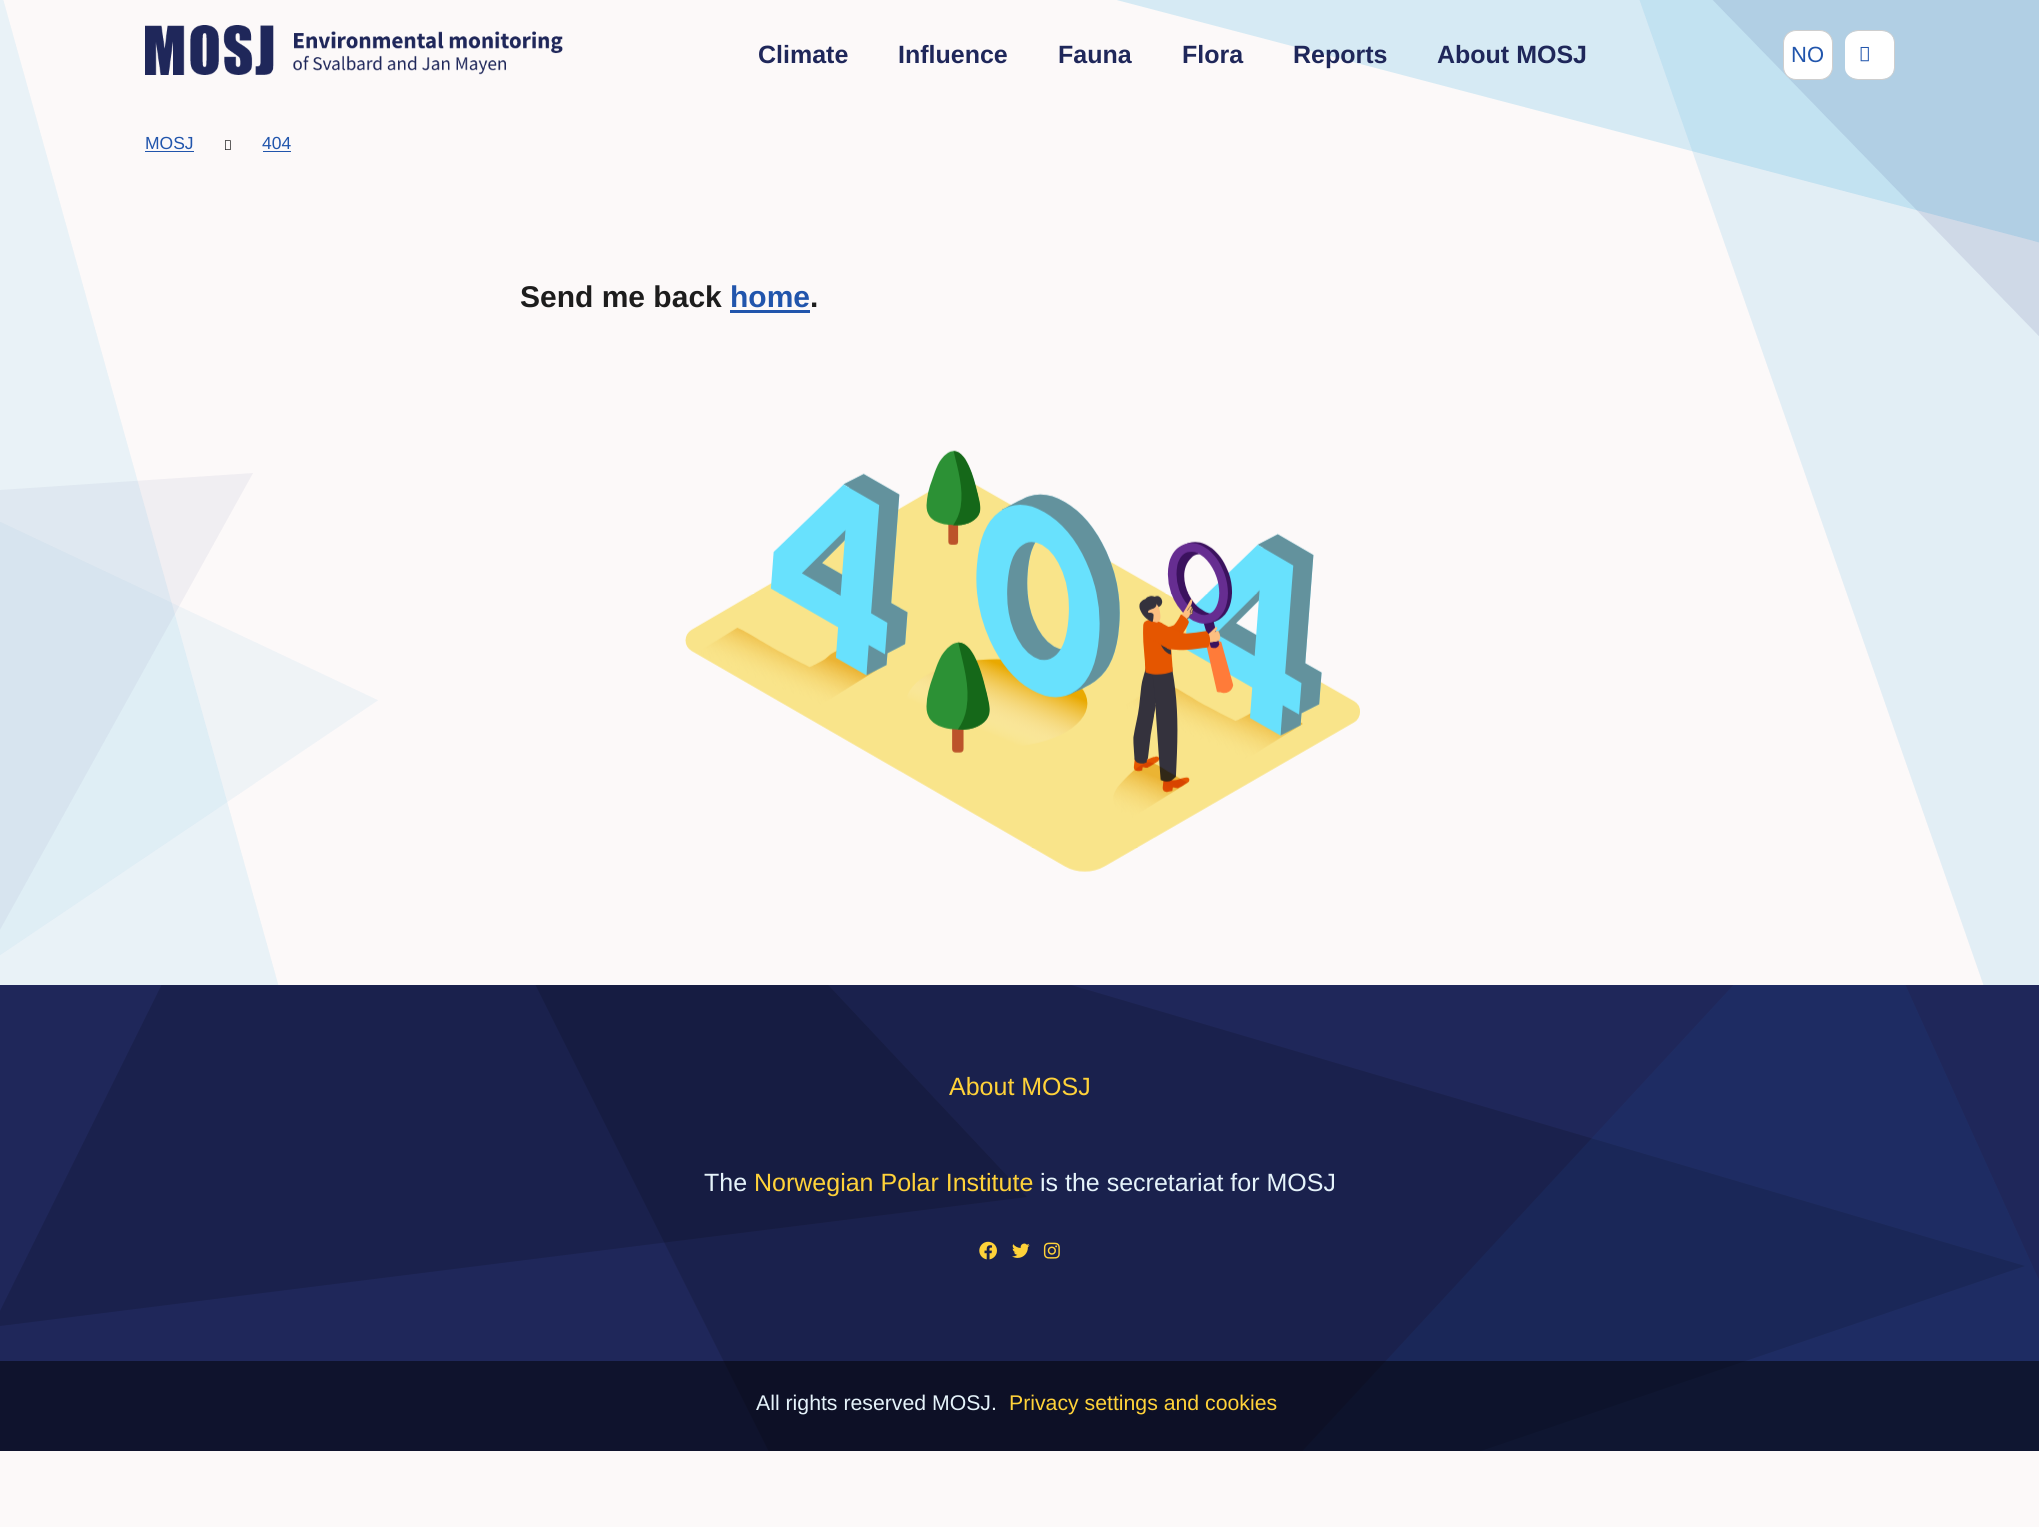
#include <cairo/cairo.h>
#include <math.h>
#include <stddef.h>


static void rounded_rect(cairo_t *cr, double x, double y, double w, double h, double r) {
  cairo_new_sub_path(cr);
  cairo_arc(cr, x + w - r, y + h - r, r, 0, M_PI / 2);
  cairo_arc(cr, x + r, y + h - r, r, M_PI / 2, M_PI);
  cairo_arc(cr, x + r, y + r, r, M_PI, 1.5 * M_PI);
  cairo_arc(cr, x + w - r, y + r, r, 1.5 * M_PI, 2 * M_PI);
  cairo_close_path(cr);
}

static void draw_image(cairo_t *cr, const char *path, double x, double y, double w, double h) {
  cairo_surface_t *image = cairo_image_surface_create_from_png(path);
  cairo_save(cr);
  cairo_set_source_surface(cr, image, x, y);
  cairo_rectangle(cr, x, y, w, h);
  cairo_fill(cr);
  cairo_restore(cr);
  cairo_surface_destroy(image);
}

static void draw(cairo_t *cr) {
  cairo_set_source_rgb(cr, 252 / 255.0, 249 / 255.0, 249 / 255.0);
  cairo_paint(cr);
  draw_image(cr, "images/1.png", 0, 0, 2039, 985);
  draw_image(cr, "images/2.png", 145, 25, 418, 50);
  cairo_set_source_rgb(cr, 1, 1, 1);
  rounded_rect(cr, 1783.5, 30.5, 49, 49, 12.5);
  cairo_fill_preserve(cr);
  cairo_set_source_rgb(cr, 206 / 255.0, 206 / 255.0, 206 / 255.0);
  cairo_set_line_width(cr, 1);
  cairo_stroke(cr);
  cairo_set_source_rgb(cr, 1, 1, 1);
  cairo_new_path(cr);
  cairo_move_to(cr, 1858, 31);
  cairo_line_to(cr, 1882, 31);
  cairo_curve_to(cr, 1889, 31, 1894, 36, 1894, 42);
  cairo_line_to(cr, 1894, 68);
  cairo_curve_to(cr, 1894, 74, 1889, 79, 1882, 79);
  cairo_line_to(cr, 1858, 79);
  cairo_curve_to(cr, 1851, 79, 1845, 74, 1845, 68);
  cairo_line_to(cr, 1845, 42);
  cairo_curve_to(cr, 1845, 36, 1851, 31, 1858, 31);
  cairo_close_path(cr);
  cairo_fill(cr);
  cairo_set_source_rgb(cr, 206 / 255.0, 206 / 255.0, 206 / 255.0);
  cairo_set_fill_rule(cr, CAIRO_FILL_RULE_EVEN_ODD);
  cairo_new_path(cr);
  cairo_move_to(cr, 1858, 30);
  cairo_line_to(cr, 1882, 30);
  cairo_curve_to(cr, 1889, 30, 1895, 36, 1895, 42);
  cairo_line_to(cr, 1895, 68);
  cairo_curve_to(cr, 1895, 74, 1889, 80, 1882, 80);
  cairo_line_to(cr, 1858, 80);
  cairo_curve_to(cr, 1851, 80, 1845, 74, 1845, 68);
  cairo_line_to(cr, 1845, 42);
  cairo_curve_to(cr, 1845, 36, 1851, 30, 1858, 30);
  cairo_close_path(cr);
  cairo_move_to(cr, 1858, 31);
  cairo_line_to(cr, 1882, 31);
  cairo_curve_to(cr, 1889, 31, 1894, 36, 1894, 42);
  cairo_line_to(cr, 1894, 68);
  cairo_curve_to(cr, 1894, 74, 1889, 79, 1882, 79);
  cairo_line_to(cr, 1858, 79);
  cairo_curve_to(cr, 1851, 79, 1845, 74, 1845, 68);
  cairo_line_to(cr, 1845, 42);
  cairo_curve_to(cr, 1845, 36, 1851, 31, 1858, 31);
  cairo_close_path(cr);
  cairo_fill(cr);
  draw_image(cr, "images/3.png", 1860, 46, 9, 16);
  cairo_set_source_rgb(cr, 33 / 255.0, 85 / 255.0, 172 / 255.0);
  cairo_rectangle(cr, 145, 151, 49, 1);
  cairo_fill(cr);
  draw_image(cr, "images/4.png", 225, 140, 6, 10);
  cairo_rectangle(cr, 263, 151, 28, 1);
  cairo_fill(cr);
  cairo_rectangle(cr, 730, 310, 80, 3);
  cairo_fill(cr);
  draw_image(cr, "images/5.png", 685, 450, 675, 422);
  cairo_set_source_rgb(cr, 31 / 255.0, 39 / 255.0, 90 / 255.0);
  cairo_rectangle(cr, 0, 985, 2039, 466);
  cairo_fill(cr);
  cairo_save(cr);
  cairo_set_fill_rule(cr, CAIRO_FILL_RULE_WINDING);
  cairo_rectangle(cr, 0, 985, 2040, 466);
  cairo_clip(cr);
  cairo_set_source_rgb(cr, 26 / 255.0, 33 / 255.0, 77 / 255.0);
  cairo_new_path(cr);
  cairo_move_to(cr, 1027, 1197);
  cairo_line_to(cr, -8, 1327);
  cairo_line_to(cr, 392, 520);
  cairo_close_path(cr);
  cairo_fill(cr);
  cairo_set_source_rgba(cr, 0, 0, 0, 0.15);
  cairo_new_path(cr);
  cairo_move_to(cr, 872, 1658);
  cairo_line_to(cr, 443, 800);
  cairo_line_to(cr, 2025, 1266);
  cairo_close_path(cr);
  cairo_fill(cr);
  cairo_set_source_rgba(cr, 33 / 255.0, 85 / 255.0, 172 / 255.0, 0.12);
  cairo_new_path(cr);
  cairo_move_to(cr, 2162, 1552);
  cairo_line_to(cr, 1259, 1498);
  cairo_line_to(cr, 1849, 860);
  cairo_close_path(cr);
  cairo_fill(cr);
  cairo_restore(cr);
  draw_image(cr, "images/6.png", 979, 1241, 18, 19);
  draw_image(cr, "images/7.png", 1012, 1243, 18, 15);
  draw_image(cr, "images/8.png", 1043, 1242, 17, 17);
  cairo_set_source_rgba(cr, 0, 0, 0, 0.5);
  cairo_rectangle(cr, 0, 1361, 2039, 90);
  cairo_fill(cr);
  cairo_select_font_face(cr, "Liberation Sans", CAIRO_FONT_SLANT_NORMAL, CAIRO_FONT_WEIGHT_BOLD);
  cairo_set_font_size(cr, 25);
  cairo_set_source_rgb(cr, 31 / 255.0, 39 / 255.0, 90 / 255.0);
  cairo_move_to(cr, 758, 63);
  cairo_show_text(cr, "Climate");
  cairo_move_to(cr, 898, 63);
  cairo_show_text(cr, "Influence");
  cairo_move_to(cr, 1058, 63);
  cairo_show_text(cr, "Fauna");
  cairo_move_to(cr, 1182, 63);
  cairo_show_text(cr, "Flora");
  cairo_move_to(cr, 1293, 63);
  cairo_show_text(cr, "Reports");
  cairo_move_to(cr, 1437, 63);
  cairo_show_text(cr, "About MOSJ");
  cairo_select_font_face(cr, "Liberation Sans", CAIRO_FONT_SLANT_NORMAL, CAIRO_FONT_WEIGHT_NORMAL);
  cairo_set_font_size(cr, 22);
  cairo_set_source_rgb(cr, 33 / 255.0, 85 / 255.0, 172 / 255.0);
  cairo_move_to(cr, 1791, 62);
  cairo_show_text(cr, "NO");
  cairo_set_font_size(cr, 17.5);
  cairo_move_to(cr, 145, 149);
  cairo_show_text(cr, "MOSJ");
  cairo_move_to(cr, 262, 149);
  cairo_show_text(cr, "404");
  cairo_select_font_face(cr, "Liberation Sans", CAIRO_FONT_SLANT_NORMAL, CAIRO_FONT_WEIGHT_BOLD);
  cairo_set_font_size(cr, 30);
  cairo_set_source_rgb(cr, 29 / 255.0, 29 / 255.0, 29 / 255.0);
  cairo_move_to(cr, 520, 307);
  cairo_show_text(cr, "Send me back");
  cairo_set_source_rgb(cr, 33 / 255.0, 85 / 255.0, 172 / 255.0);
  cairo_move_to(cr, 730, 307);
  cairo_show_text(cr, "home");
  cairo_set_source_rgb(cr, 29 / 255.0, 29 / 255.0, 29 / 255.0);
  cairo_move_to(cr, 810, 307);
  cairo_show_text(cr, ".");
  cairo_select_font_face(cr, "Liberation Sans", CAIRO_FONT_SLANT_NORMAL, CAIRO_FONT_WEIGHT_NORMAL);
  cairo_set_font_size(cr, 25);
  cairo_set_source_rgb(cr, 1, 210 / 255.0, 57 / 255.0);
  cairo_move_to(cr, 949, 1095);
  cairo_show_text(cr, "About MOSJ");
  cairo_set_source_rgb(cr, 229 / 255.0, 243 / 255.0, 250 / 255.0);
  cairo_move_to(cr, 704, 1191);
  cairo_show_text(cr, "The");
  cairo_set_source_rgb(cr, 1, 210 / 255.0, 57 / 255.0);
  cairo_move_to(cr, 754, 1191);
  cairo_show_text(cr, "Norwegian Polar Institute");
  cairo_set_source_rgb(cr, 229 / 255.0, 243 / 255.0, 250 / 255.0);
  cairo_move_to(cr, 1040, 1191);
  cairo_show_text(cr, "is the secretariat for MOSJ");
  cairo_set_font_size(cr, 21.25);
  cairo_move_to(cr, 756, 1410);
  cairo_show_text(cr, "All rights reserved MOSJ.");
  cairo_set_source_rgb(cr, 1, 210 / 255.0, 57 / 255.0);
  cairo_move_to(cr, 1009, 1410);
  cairo_show_text(cr, "Privacy settings and cookies");
}

int main(void) {
  cairo_surface_t *surface = cairo_image_surface_create(CAIRO_FORMAT_RGB24, 2039, 1527);
  cairo_t *cr = cairo_create(surface);
  cairo_font_options_t *options = cairo_font_options_create();
  cairo_font_options_set_hint_metrics(options, CAIRO_HINT_METRICS_OFF);
  cairo_font_options_set_hint_style(options, CAIRO_HINT_STYLE_NONE);
  cairo_set_font_options(cr, options);
  cairo_set_miter_limit(cr, 4);
  draw(cr);
  cairo_surface_write_to_png(surface, "out.png");
  cairo_font_options_destroy(options);
  cairo_destroy(cr);
  cairo_surface_destroy(surface);
  return 0;
}
